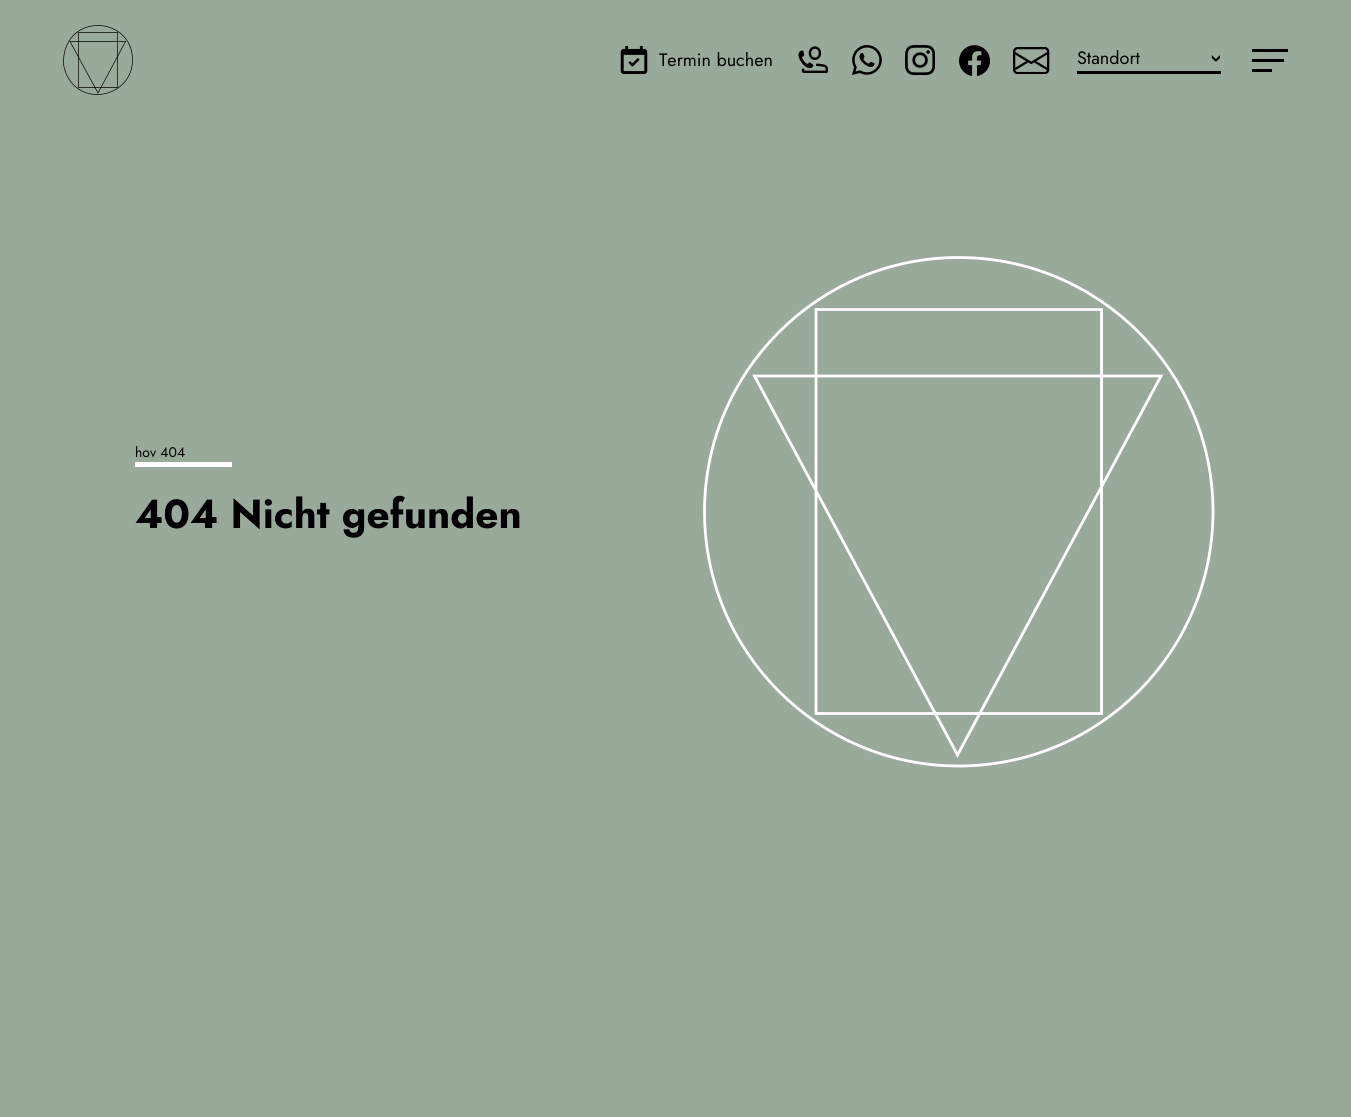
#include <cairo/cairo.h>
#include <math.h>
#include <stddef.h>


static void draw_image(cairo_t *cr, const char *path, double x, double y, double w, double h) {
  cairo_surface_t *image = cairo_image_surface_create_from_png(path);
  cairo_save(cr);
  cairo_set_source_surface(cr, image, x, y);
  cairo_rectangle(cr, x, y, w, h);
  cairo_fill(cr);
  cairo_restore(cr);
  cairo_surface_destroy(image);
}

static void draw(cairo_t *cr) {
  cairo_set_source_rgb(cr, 153 / 255.0, 170 / 255.0, 155 / 255.0);
  cairo_paint(cr);
  cairo_new_path(cr);
  cairo_move_to(cr, 117.5, 87.5);
  cairo_line_to(cr, 78.5, 87.5);
  cairo_line_to(cr, 78.5, 32.5);
  cairo_line_to(cr, 117.5, 32.5);
  cairo_close_path(cr);
  cairo_move_to(cr, 132.5, 60);
  cairo_curve_to(cr, 132.5, 95.5, 84, 108, 67.5, 76.5);
  cairo_curve_to(cr, 65, 71.5, 63, 65.5, 63.5, 60);
  cairo_curve_to(cr, 66, 12, 132.5, 16, 132.5, 60);
  cairo_close_path(cr);
  cairo_move_to(cr, 98, 93);
  cairo_line_to(cr, 125.5, 41.5);
  cairo_line_to(cr, 70, 41.5);
  cairo_close_path(cr);
  cairo_set_source_rgb(cr, 0, 0, 0);
  cairo_set_line_width(cr, 0.7);
  cairo_stroke(cr);
  draw_image(cr, "images/1.png", 620, 46, 28, 28);
  draw_image(cr, "images/2.png", 798, 46, 30, 27);
  draw_image(cr, "images/3.png", 852, 45, 30, 30);
  draw_image(cr, "images/4.png", 905, 45, 30, 30);
  draw_image(cr, "images/5.png", 959, 45, 31, 31);
  draw_image(cr, "images/6.png", 1013, 47, 37, 27);
  cairo_rectangle(cr, 1077, 71, 144, 3);
  cairo_fill(cr);
  draw_image(cr, "images/7.png", 1211, 55, 9, 7);
  cairo_rectangle(cr, 1252, 49, 36, 3);
  cairo_fill(cr);
  cairo_rectangle(cr, 1252, 59, 32, 3);
  cairo_fill(cr);
  cairo_rectangle(cr, 1252, 69, 20, 3);
  cairo_fill(cr);
  cairo_set_source_rgb(cr, 1, 1, 1);
  cairo_rectangle(cr, 135, 462, 97, 5);
  cairo_fill(cr);
  cairo_new_path(cr);
  cairo_move_to(cr, 1101.5, 713.5);
  cairo_line_to(cr, 816, 713.5);
  cairo_line_to(cr, 816, 309.5);
  cairo_line_to(cr, 1101.5, 309.5);
  cairo_close_path(cr);
  cairo_move_to(cr, 1213, 511.5);
  cairo_curve_to(cr, 1213, 652, 1099, 766, 958.5, 766);
  cairo_curve_to(cr, 818.5, 766, 704.5, 652, 704.5, 511.5);
  cairo_curve_to(cr, 704.5, 371.5, 818.5, 257.5, 958.5, 257.5);
  cairo_curve_to(cr, 1099, 257.5, 1213, 371.5, 1213, 511.5);
  cairo_close_path(cr);
  cairo_move_to(cr, 957.5, 755);
  cairo_line_to(cr, 1161, 376);
  cairo_line_to(cr, 754.5, 376);
  cairo_close_path(cr);
  cairo_set_line_width(cr, 2.8);
  cairo_stroke(cr);
  cairo_select_font_face(cr, "Jost", CAIRO_FONT_SLANT_NORMAL, CAIRO_FONT_WEIGHT_NORMAL);
  cairo_set_font_size(cr, 18);
  cairo_set_source_rgb(cr, 0, 0, 0);
  cairo_move_to(cr, 659, 66);
  cairo_show_text(cr, "Termin buchen");
  cairo_move_to(cr, 1077, 64);
  cairo_show_text(cr, "Standort");
  cairo_set_font_size(cr, 14);
  cairo_move_to(cr, 135, 457);
  cairo_show_text(cr, "hov 404");
  cairo_select_font_face(cr, "Jost", CAIRO_FONT_SLANT_NORMAL, CAIRO_FONT_WEIGHT_BOLD);
  cairo_set_font_size(cr, 40.5);
  cairo_move_to(cr, 135, 528);
  cairo_show_text(cr, "404 Nicht gefunden");
}

int main(void) {
  cairo_surface_t *surface = cairo_image_surface_create(CAIRO_FORMAT_RGB24, 1351, 1117);
  cairo_t *cr = cairo_create(surface);
  cairo_font_options_t *options = cairo_font_options_create();
  cairo_font_options_set_hint_metrics(options, CAIRO_HINT_METRICS_OFF);
  cairo_font_options_set_hint_style(options, CAIRO_HINT_STYLE_NONE);
  cairo_set_font_options(cr, options);
  cairo_set_miter_limit(cr, 4);
  draw(cr);
  cairo_surface_write_to_png(surface, "out.png");
  cairo_font_options_destroy(options);
  cairo_destroy(cr);
  cairo_surface_destroy(surface);
  return 0;
}
